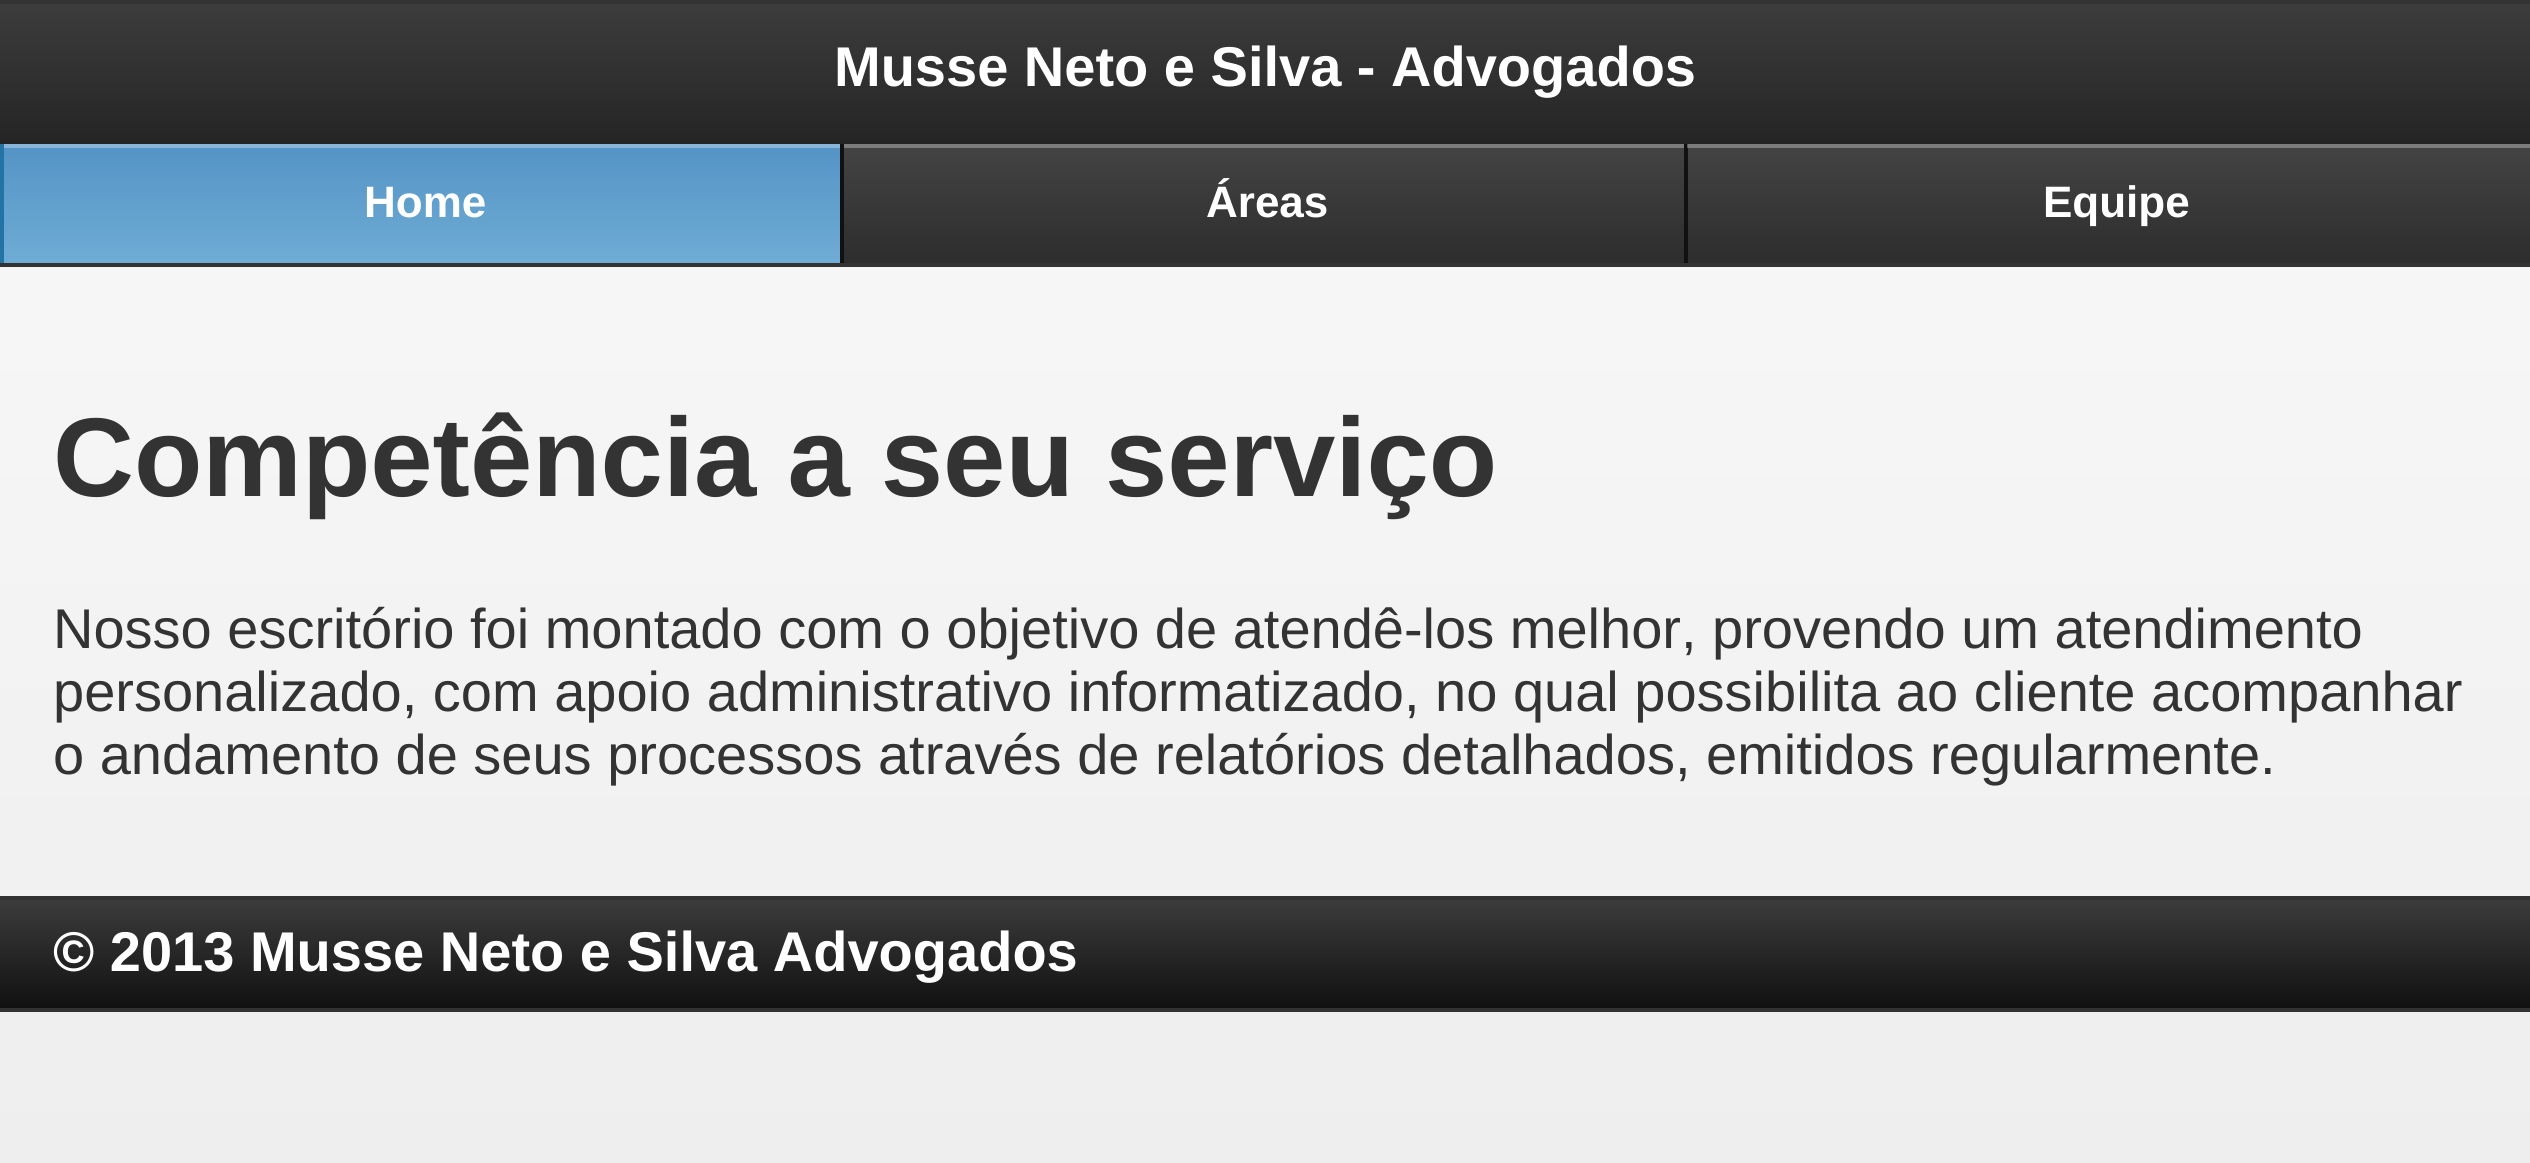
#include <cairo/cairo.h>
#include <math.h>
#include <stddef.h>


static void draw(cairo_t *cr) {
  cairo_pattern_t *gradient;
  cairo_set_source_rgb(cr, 1, 1, 1);
  cairo_paint(cr);
  gradient = cairo_pattern_create_linear(1265, 0, 1265, 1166);
  cairo_pattern_add_color_stop_rgba(gradient, 0, 249 / 255.0, 249 / 255.0, 249 / 255.0, 1);
  cairo_pattern_add_color_stop_rgba(gradient, 1, 238 / 255.0, 238 / 255.0, 238 / 255.0, 1);
  cairo_set_source(cr, gradient);
  cairo_pattern_destroy(gradient);
  cairo_rectangle(cr, 0, 267, 2530, 896);
  cairo_fill(cr);
  gradient = cairo_pattern_create_linear(1265, 3.5, 1265, 263);
  cairo_pattern_add_color_stop_rgba(gradient, 0, 60 / 255.0, 60 / 255.0, 60 / 255.0, 1);
  cairo_pattern_add_color_stop_rgba(gradient, 1, 17 / 255.0, 17 / 255.0, 17 / 255.0, 1);
  cairo_set_source(cr, gradient);
  cairo_pattern_destroy(gradient);
  cairo_rectangle(cr, 0, 4, 2530, 140);
  cairo_fill(cr);
  cairo_set_source_rgb(cr, 51 / 255.0, 51 / 255.0, 51 / 255.0);
  cairo_rectangle(cr, 0, 0, 2530, 4);
  cairo_fill(cr);
  cairo_rectangle(cr, 0, 263, 2530, 4);
  cairo_fill(cr);
  gradient = cairo_pattern_create_linear(425, 143, 425, 263);
  cairo_pattern_add_color_stop_rgba(gradient, 0, 83 / 255.0, 147 / 255.0, 197 / 255.0, 1);
  cairo_pattern_add_color_stop_rgba(gradient, 1, 111 / 255.0, 172 / 255.0, 213 / 255.0, 1);
  cairo_set_source(cr, gradient);
  cairo_pattern_destroy(gradient);
  cairo_rectangle(cr, 4, 148, 836, 115);
  cairo_fill(cr);
  cairo_set_source_rgb(cr, 35 / 255.0, 115 / 255.0, 165 / 255.0);
  cairo_rectangle(cr, 0, 144, 4, 119);
  cairo_fill(cr);
  cairo_set_source_rgb(cr, 135 / 255.0, 180 / 255.0, 215 / 255.0);
  cairo_rectangle(cr, 4, 144, 843, 4);
  cairo_fill(cr);
  gradient = cairo_pattern_create_linear(1265, 143, 1265, 263);
  cairo_pattern_add_color_stop_rgba(gradient, 0, 68 / 255.0, 68 / 255.0, 68 / 255.0, 1);
  cairo_pattern_add_color_stop_rgba(gradient, 1, 45 / 255.0, 45 / 255.0, 45 / 255.0, 1);
  cairo_set_source(cr, gradient);
  cairo_pattern_destroy(gradient);
  cairo_rectangle(cr, 844, 148, 840, 115);
  cairo_fill(cr);
  cairo_set_source_rgb(cr, 17 / 255.0, 17 / 255.0, 17 / 255.0);
  cairo_rectangle(cr, 840, 144, 4, 119);
  cairo_fill(cr);
  cairo_set_source_rgb(cr, 124 / 255.0, 124 / 255.0, 124 / 255.0);
  cairo_rectangle(cr, 844, 144, 843, 4);
  cairo_fill(cr);
  gradient = cairo_pattern_create_linear(2116, 143, 2116, 263);
  cairo_pattern_add_color_stop_rgba(gradient, 0, 68 / 255.0, 68 / 255.0, 68 / 255.0, 1);
  cairo_pattern_add_color_stop_rgba(gradient, 1, 45 / 255.0, 45 / 255.0, 45 / 255.0, 1);
  cairo_set_source(cr, gradient);
  cairo_pattern_destroy(gradient);
  cairo_rectangle(cr, 1688, 148, 842, 115);
  cairo_fill(cr);
  gradient = cairo_pattern_create_linear(2116, 143, 2116, 263);
  cairo_pattern_add_color_stop_rgba(gradient, 0, 124 / 255.0, 124 / 255.0, 124 / 255.0, 1);
  cairo_pattern_add_color_stop_rgba(gradient, 1, 108 / 255.0, 108 / 255.0, 108 / 255.0, 1);
  cairo_set_source(cr, gradient);
  cairo_pattern_destroy(gradient);
  cairo_rectangle(cr, 1687, 144, 843, 4);
  cairo_fill(cr);
  cairo_set_source_rgb(cr, 17 / 255.0, 17 / 255.0, 17 / 255.0);
  cairo_rectangle(cr, 1684, 144, 4, 119);
  cairo_fill(cr);
  cairo_set_source_rgb(cr, 88 / 255.0, 88 / 255.0, 88 / 255.0);
  cairo_rectangle(cr, 1687, 144, 1, 4);
  cairo_fill(cr);
  gradient = cairo_pattern_create_linear(1265, 899, 1265, 1008);
  cairo_pattern_add_color_stop_rgba(gradient, 0, 60 / 255.0, 60 / 255.0, 60 / 255.0, 1);
  cairo_pattern_add_color_stop_rgba(gradient, 1, 17 / 255.0, 17 / 255.0, 17 / 255.0, 1);
  cairo_set_source(cr, gradient);
  cairo_pattern_destroy(gradient);
  cairo_rectangle(cr, 0, 900, 2530, 108);
  cairo_fill(cr);
  cairo_set_source_rgb(cr, 51 / 255.0, 51 / 255.0, 51 / 255.0);
  cairo_rectangle(cr, 0, 896, 2530, 4);
  cairo_fill(cr);
  cairo_rectangle(cr, 0, 1008, 2530, 4);
  cairo_fill(cr);
  cairo_select_font_face(cr, "Liberation Sans", CAIRO_FONT_SLANT_NORMAL, CAIRO_FONT_WEIGHT_BOLD);
  cairo_set_font_size(cr, 56);
  cairo_set_source_rgb(cr, 1, 1, 1);
  cairo_move_to(cr, 834, 86);
  cairo_show_text(cr, "Musse Neto e Silva - Advogados");
  cairo_set_font_size(cr, 44);
  cairo_move_to(cr, 364, 217);
  cairo_show_text(cr, "Home");
  cairo_move_to(cr, 1206, 217);
  cairo_show_text(cr, "Áreas");
  cairo_move_to(cr, 2043, 217);
  cairo_show_text(cr, "Equipe");
  cairo_set_font_size(cr, 112);
  cairo_set_source_rgb(cr, 51 / 255.0, 51 / 255.0, 51 / 255.0);
  cairo_move_to(cr, 53, 496);
  cairo_show_text(cr, "Competência a seu serviço");
  cairo_select_font_face(cr, "Liberation Sans", CAIRO_FONT_SLANT_NORMAL, CAIRO_FONT_WEIGHT_NORMAL);
  cairo_set_font_size(cr, 56);
  cairo_move_to(cr, 53, 648);
  cairo_show_text(cr, "Nosso escritório foi montado com o objetivo de atendê-los melhor, provendo um atendimento");
  cairo_move_to(cr, 53, 711);
  cairo_show_text(cr, "personalizado, com apoio administrativo informatizado, no qual possibilita ao cliente acompanhar");
  cairo_move_to(cr, 53, 774);
  cairo_show_text(cr, "o andamento de seus processos através de relatórios detalhados, emitidos regularmente.");
  cairo_select_font_face(cr, "Liberation Sans", CAIRO_FONT_SLANT_NORMAL, CAIRO_FONT_WEIGHT_BOLD);
  cairo_set_source_rgb(cr, 1, 1, 1);
  cairo_move_to(cr, 53, 971);
  cairo_show_text(cr, "© 2013 Musse Neto e Silva Advogados");
}

int main(void) {
  cairo_surface_t *surface = cairo_image_surface_create(CAIRO_FORMAT_RGB24, 2530, 1163);
  cairo_t *cr = cairo_create(surface);
  cairo_font_options_t *options = cairo_font_options_create();
  cairo_font_options_set_hint_metrics(options, CAIRO_HINT_METRICS_OFF);
  cairo_font_options_set_hint_style(options, CAIRO_HINT_STYLE_NONE);
  cairo_set_font_options(cr, options);
  cairo_set_miter_limit(cr, 4);
  draw(cr);
  cairo_surface_write_to_png(surface, "out.png");
  cairo_font_options_destroy(options);
  cairo_destroy(cr);
  cairo_surface_destroy(surface);
  return 0;
}
